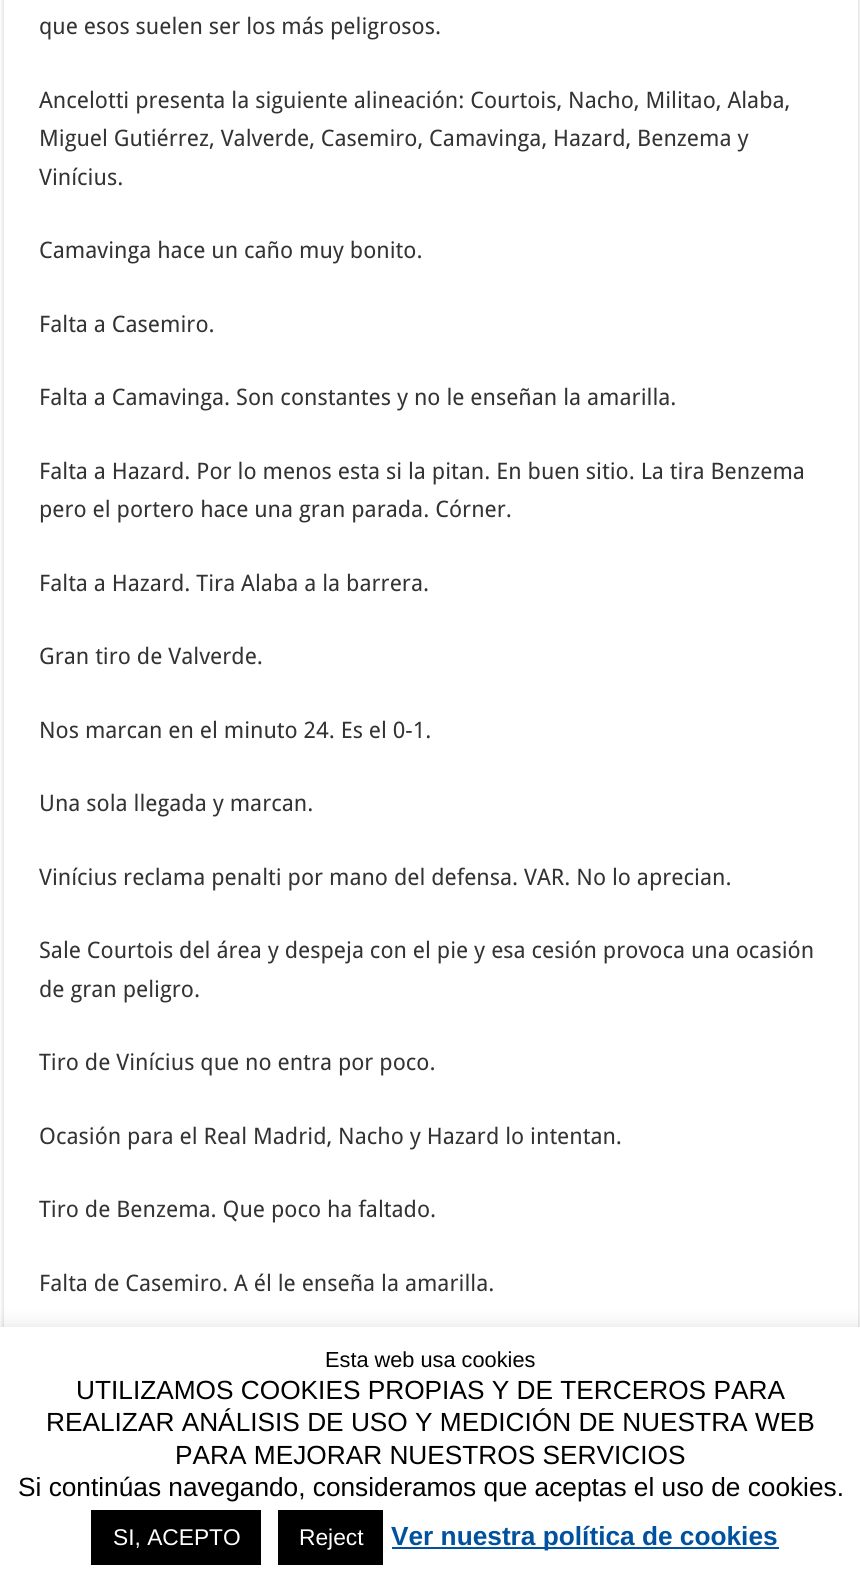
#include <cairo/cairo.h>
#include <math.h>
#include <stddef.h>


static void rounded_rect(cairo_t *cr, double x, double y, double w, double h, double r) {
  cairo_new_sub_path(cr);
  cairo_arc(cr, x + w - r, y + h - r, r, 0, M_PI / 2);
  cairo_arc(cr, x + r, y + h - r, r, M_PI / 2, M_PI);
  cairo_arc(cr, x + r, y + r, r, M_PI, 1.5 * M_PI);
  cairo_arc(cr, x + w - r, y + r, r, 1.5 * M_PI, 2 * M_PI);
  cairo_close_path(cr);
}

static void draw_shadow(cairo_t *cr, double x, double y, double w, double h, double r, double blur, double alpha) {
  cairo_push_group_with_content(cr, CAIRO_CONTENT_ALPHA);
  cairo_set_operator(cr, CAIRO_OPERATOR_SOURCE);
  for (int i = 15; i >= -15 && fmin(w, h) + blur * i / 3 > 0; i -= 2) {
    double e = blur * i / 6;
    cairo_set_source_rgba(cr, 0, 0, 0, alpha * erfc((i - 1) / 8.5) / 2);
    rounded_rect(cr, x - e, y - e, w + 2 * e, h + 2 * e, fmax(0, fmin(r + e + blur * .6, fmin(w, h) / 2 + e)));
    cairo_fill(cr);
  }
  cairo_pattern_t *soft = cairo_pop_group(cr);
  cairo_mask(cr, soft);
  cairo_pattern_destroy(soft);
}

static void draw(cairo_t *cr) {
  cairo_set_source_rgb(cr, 1, 1, 1);
  cairo_paint(cr);
  cairo_set_source_rgb(cr, 202 / 255.0, 202 / 255.0, 202 / 255.0);
  draw_shadow(cr, 4, -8, 854, 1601, 0, 2.5, 1);
  cairo_set_source_rgb(cr, 1, 1, 1);
  cairo_rectangle(cr, 4, 0, 854, 1327);
  cairo_fill(cr);
  cairo_set_source_rgb(cr, 172 / 255.0, 171 / 255.0, 171 / 255.0);
  draw_shadow(cr, 0, 1325, 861, 259, 0, 9, 0.3);
  cairo_set_source_rgb(cr, 1, 1, 1);
  cairo_rectangle(cr, 0, 1327, 860, 258);
  cairo_fill(cr);
  cairo_set_source_rgb(cr, 0, 0, 0);
  cairo_rectangle(cr, 91, 1510, 170, 55);
  cairo_fill(cr);
  cairo_rectangle(cr, 278, 1510, 105, 55);
  cairo_fill(cr);
  cairo_set_source_rgb(cr, 0, 82 / 255.0, 159 / 255.0);
  cairo_rectangle(cr, 392, 1547, 387, 2);
  cairo_fill(cr);
  cairo_select_font_face(cr, "Droid Sans", CAIRO_FONT_SLANT_NORMAL, CAIRO_FONT_WEIGHT_NORMAL);
  cairo_set_font_size(cr, 22.75);
  cairo_set_source_rgb(cr, 51 / 255.0, 51 / 255.0, 51 / 255.0);
  cairo_move_to(cr, 39, 34);
  cairo_show_text(cr, "que esos suelen ser los más peligrosos.");
  cairo_move_to(cr, 39, 108);
  cairo_show_text(cr, "Ancelotti presenta la siguiente alineación: Courtois, Nacho, Militao, Alaba,");
  cairo_move_to(cr, 39, 146);
  cairo_show_text(cr, "Miguel Gutiérrez, Valverde, Casemiro, Camavinga, Hazard, Benzema y");
  cairo_move_to(cr, 39, 185);
  cairo_show_text(cr, "Vinícius.");
  cairo_move_to(cr, 39, 258);
  cairo_show_text(cr, "Camavinga hace un caño muy bonito.");
  cairo_move_to(cr, 39, 332);
  cairo_show_text(cr, "Falta a Casemiro.");
  cairo_move_to(cr, 39, 405);
  cairo_show_text(cr, "Falta a Camavinga. Son constantes y no le enseñan la amarilla.");
  cairo_move_to(cr, 39, 479);
  cairo_show_text(cr, "Falta a Hazard. Por lo menos esta si la pitan. En buen sitio. La tira Benzema");
  cairo_move_to(cr, 39, 517);
  cairo_show_text(cr, "pero el portero hace una gran parada. Córner.");
  cairo_move_to(cr, 39, 591);
  cairo_show_text(cr, "Falta a Hazard. Tira Alaba a la barrera.");
  cairo_move_to(cr, 39, 664);
  cairo_show_text(cr, "Gran tiro de Valverde.");
  cairo_move_to(cr, 39, 738);
  cairo_show_text(cr, "Nos marcan en el minuto 24. Es el 0-1.");
  cairo_move_to(cr, 39, 811);
  cairo_show_text(cr, "Una sola llegada y marcan.");
  cairo_move_to(cr, 39, 885);
  cairo_show_text(cr, "Vinícius reclama penalti por mano del defensa. VAR. No lo aprecian.");
  cairo_move_to(cr, 39, 958);
  cairo_show_text(cr, "Sale Courtois del área y despeja con el pie y esa cesión provoca una ocasión");
  cairo_move_to(cr, 39, 997);
  cairo_show_text(cr, "de gran peligro.");
  cairo_move_to(cr, 39, 1070);
  cairo_show_text(cr, "Tiro de Vinícius que no entra por poco.");
  cairo_move_to(cr, 39, 1144);
  cairo_show_text(cr, "Ocasión para el Real Madrid, Nacho y Hazard lo intentan.");
  cairo_move_to(cr, 39, 1217);
  cairo_show_text(cr, "Tiro de Benzema. Que poco ha faltado.");
  cairo_move_to(cr, 39, 1291);
  cairo_show_text(cr, "Falta de Casemiro. A él le enseña la amarilla.");
  cairo_select_font_face(cr, "Liberation Sans", CAIRO_FONT_SLANT_NORMAL, CAIRO_FONT_WEIGHT_NORMAL);
  cairo_set_font_size(cr, 21.75);
  cairo_set_source_rgb(cr, 0, 0, 0);
  cairo_move_to(cr, 325, 1367);
  cairo_show_text(cr, "Esta web usa cookies");
  cairo_set_font_size(cr, 26.25);
  cairo_move_to(cr, 76, 1399);
  cairo_show_text(cr, "UTILIZAMOS COOKIES PROPIAS Y DE TERCEROS PARA");
  cairo_move_to(cr, 46, 1431);
  cairo_show_text(cr, "REALIZAR ANÁLISIS DE USO Y MEDICIÓN DE NUESTRA WEB");
  cairo_move_to(cr, 175, 1464);
  cairo_show_text(cr, "PARA MEJORAR NUESTROS SERVICIOS");
  cairo_move_to(cr, 18, 1496);
  cairo_show_text(cr, "Si continúas navegando, consideramos que aceptas el uso de cookies.");
  cairo_set_font_size(cr, 22.75);
  cairo_set_source_rgb(cr, 1, 1, 1);
  cairo_move_to(cr, 113, 1545);
  cairo_show_text(cr, "SI, ACEPTO");
  cairo_move_to(cr, 299, 1545);
  cairo_show_text(cr, "Reject");
  cairo_select_font_face(cr, "Liberation Sans", CAIRO_FONT_SLANT_NORMAL, CAIRO_FONT_WEIGHT_BOLD);
  cairo_set_font_size(cr, 26.25);
  cairo_set_source_rgb(cr, 0, 82 / 255.0, 159 / 255.0);
  cairo_move_to(cr, 391, 1545);
  cairo_show_text(cr, "Ver nuestra política de cookies");
}

int main(void) {
  cairo_surface_t *surface = cairo_image_surface_create(CAIRO_FORMAT_RGB24, 860, 1585);
  cairo_t *cr = cairo_create(surface);
  cairo_font_options_t *options = cairo_font_options_create();
  cairo_font_options_set_hint_metrics(options, CAIRO_HINT_METRICS_OFF);
  cairo_font_options_set_hint_style(options, CAIRO_HINT_STYLE_NONE);
  cairo_set_font_options(cr, options);
  cairo_set_miter_limit(cr, 4);
  draw(cr);
  cairo_surface_write_to_png(surface, "out.png");
  cairo_font_options_destroy(options);
  cairo_destroy(cr);
  cairo_surface_destroy(surface);
  return 0;
}
